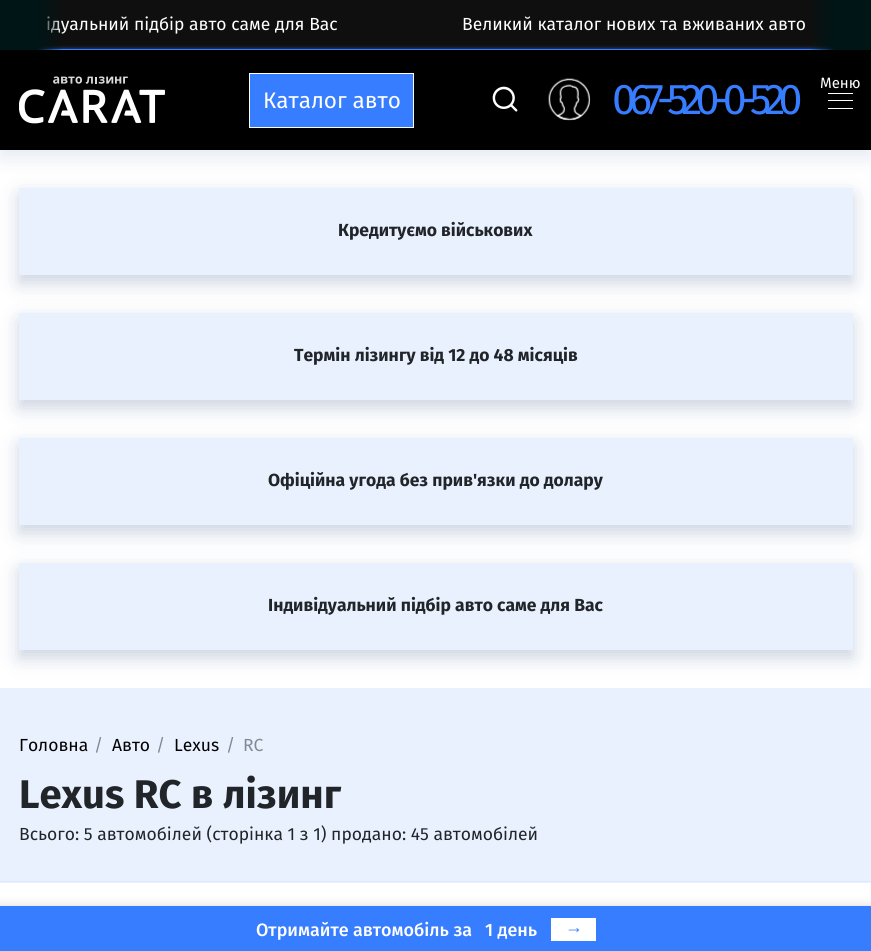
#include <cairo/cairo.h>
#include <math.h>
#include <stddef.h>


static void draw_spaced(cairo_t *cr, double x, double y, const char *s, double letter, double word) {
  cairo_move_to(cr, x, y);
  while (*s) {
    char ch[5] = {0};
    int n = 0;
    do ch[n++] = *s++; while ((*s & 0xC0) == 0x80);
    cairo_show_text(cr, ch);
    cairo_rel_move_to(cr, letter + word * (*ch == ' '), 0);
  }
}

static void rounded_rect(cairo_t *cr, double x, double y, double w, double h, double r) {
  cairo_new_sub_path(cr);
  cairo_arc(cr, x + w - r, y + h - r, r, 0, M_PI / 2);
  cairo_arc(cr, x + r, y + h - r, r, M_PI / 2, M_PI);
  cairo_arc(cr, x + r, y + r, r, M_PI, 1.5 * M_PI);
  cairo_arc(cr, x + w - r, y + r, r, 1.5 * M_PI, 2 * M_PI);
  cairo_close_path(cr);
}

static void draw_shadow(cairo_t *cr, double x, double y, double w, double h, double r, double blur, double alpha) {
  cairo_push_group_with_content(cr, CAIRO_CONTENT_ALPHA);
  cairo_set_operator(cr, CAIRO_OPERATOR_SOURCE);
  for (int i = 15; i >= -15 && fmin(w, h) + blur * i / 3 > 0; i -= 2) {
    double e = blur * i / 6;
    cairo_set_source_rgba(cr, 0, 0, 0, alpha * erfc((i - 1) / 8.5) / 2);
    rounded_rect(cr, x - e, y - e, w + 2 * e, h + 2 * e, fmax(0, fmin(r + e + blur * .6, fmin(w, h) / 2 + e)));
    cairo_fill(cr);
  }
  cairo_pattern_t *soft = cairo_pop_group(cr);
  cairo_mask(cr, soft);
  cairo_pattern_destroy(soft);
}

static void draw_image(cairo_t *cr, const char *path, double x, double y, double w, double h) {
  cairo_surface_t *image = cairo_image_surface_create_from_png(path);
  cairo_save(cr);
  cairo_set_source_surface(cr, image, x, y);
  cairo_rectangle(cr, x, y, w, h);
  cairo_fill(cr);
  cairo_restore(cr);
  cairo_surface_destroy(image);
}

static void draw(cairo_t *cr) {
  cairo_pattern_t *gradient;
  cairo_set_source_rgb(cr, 1, 1, 1);
  cairo_paint(cr);
  cairo_set_source_rgb(cr, 3 / 255.0, 41 / 255.0, 106 / 255.0);
  draw_shadow(cr, 0, 8, 871, 150, 0, 9.5, 0.1);
  cairo_set_source_rgb(cr, 15 / 255.0, 15 / 255.0, 15 / 255.0);
  cairo_rectangle(cr, 37, 0, 797, 49);
  cairo_fill(cr);
  cairo_set_source_rgb(cr, 55 / 255.0, 125 / 255.0, 1);
  draw_shadow(cr, 1, 50, 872, 1, 0, 2.5, 1);
  cairo_set_source_rgb(cr, 55 / 255.0, 125 / 255.0, 1);
  cairo_rectangle(cr, 37, 49, 797, 1);
  cairo_fill(cr);
  gradient = cairo_pattern_create_linear(809, 25, 871, 25);
  cairo_pattern_add_color_stop_rgba(gradient, 0, 0, 21 / 255.0, 22 / 255.0, 0);
  cairo_pattern_add_color_stop_rgba(gradient, 0.41, 0, 21 / 255.0, 22 / 255.0, 1);
  cairo_set_source(cr, gradient);
  cairo_pattern_destroy(gradient);
  cairo_rectangle(cr, 810, 0, 61, 50);
  cairo_fill(cr);
  cairo_set_source_rgb(cr, 0, 0, 0);
  cairo_rectangle(cr, 0, 50, 871, 100);
  cairo_fill(cr);
  draw_image(cr, "images/1.png", 19, 76, 146, 48);
  cairo_set_source_rgb(cr, 55 / 255.0, 125 / 255.0, 1);
  cairo_rectangle(cr, 249.5, 73.5, 164, 54);
  cairo_fill_preserve(cr);
  cairo_set_source_rgb(cr, 1, 1, 1);
  cairo_set_line_width(cr, 1);
  cairo_stroke(cr);
  draw_image(cr, "images/2.png", 492, 86, 26, 26);
  draw_image(cr, "images/3.png", 548, 78, 43, 43);
  cairo_rectangle(cr, 828, 93, 25, 1);
  cairo_fill(cr);
  cairo_rectangle(cr, 828, 100, 25, 1);
  cairo_fill(cr);
  cairo_rectangle(cr, 828, 108, 25, 1);
  cairo_fill(cr);
  cairo_set_source_rgb(cr, 3 / 255.0, 41 / 255.0, 106 / 255.0);
  draw_shadow(cr, 19, 195, 834, 88, 0, 9.5, 0.2);
  cairo_set_source_rgb(cr, 233 / 255.0, 241 / 255.0, 254 / 255.0);
  cairo_rectangle(cr, 19, 188, 834, 87);
  cairo_fill(cr);
  cairo_set_source_rgb(cr, 3 / 255.0, 41 / 255.0, 106 / 255.0);
  draw_shadow(cr, 19, 320, 834, 88, 0, 9.5, 0.2);
  cairo_set_source_rgb(cr, 233 / 255.0, 241 / 255.0, 254 / 255.0);
  cairo_rectangle(cr, 19, 313, 834, 87);
  cairo_fill(cr);
  cairo_set_source_rgb(cr, 3 / 255.0, 41 / 255.0, 106 / 255.0);
  draw_shadow(cr, 19, 445, 834, 88, 0, 9.5, 0.2);
  cairo_set_source_rgb(cr, 233 / 255.0, 241 / 255.0, 254 / 255.0);
  cairo_rectangle(cr, 19, 438, 834, 87);
  cairo_fill(cr);
  cairo_set_source_rgb(cr, 3 / 255.0, 41 / 255.0, 106 / 255.0);
  draw_shadow(cr, 19, 570, 834, 88, 0, 9.5, 0.2);
  cairo_set_source_rgb(cr, 233 / 255.0, 241 / 255.0, 254 / 255.0);
  cairo_rectangle(cr, 19, 563, 834, 87);
  cairo_fill(cr);
  cairo_rectangle(cr, 0, 688, 871, 195);
  cairo_fill(cr);
  cairo_set_source_rgb(cr, 221 / 255.0, 233 / 255.0, 1);
  cairo_rectangle(cr, 0, 881, 871, 1);
  cairo_fill(cr);
  cairo_set_source_rgb(cr, 0, 0, 0);
  draw_shadow(cr, -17, 906, 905, 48, 0, 5.5, 0.15);
  cairo_set_source_rgb(cr, 55 / 255.0, 125 / 255.0, 1);
  cairo_rectangle(cr, 0, 906, 871, 45);
  cairo_fill(cr);
  cairo_set_source_rgb(cr, 1, 1, 1);
  cairo_rectangle(cr, 551, 918, 45, 23);
  cairo_fill(cr);
  cairo_select_font_face(cr, "Fira Sans", CAIRO_FONT_SLANT_NORMAL, CAIRO_FONT_WEIGHT_NORMAL);
  cairo_set_font_size(cr, 17.5);
  cairo_move_to(cr, 46, 30);
  cairo_show_text(cr, "ідуальний підбір авто саме для Вас");
  gradient = cairo_pattern_create_linear(63, 25, 0, 25);
  cairo_pattern_add_color_stop_rgba(gradient, 0, 0, 21 / 255.0, 22 / 255.0, 0);
  cairo_pattern_add_color_stop_rgba(gradient, 0.41, 0, 21 / 255.0, 22 / 255.0, 1);
  cairo_set_source(cr, gradient);
  cairo_pattern_destroy(gradient);
  cairo_rectangle(cr, 0, 0, 62, 50);
  cairo_fill(cr);
  cairo_set_source_rgb(cr, 1, 1, 1);
  cairo_move_to(cr, 462, 30);
  cairo_show_text(cr, "Великий каталог нових та вживаних авто");
  cairo_set_font_size(cr, 22.5);
  cairo_move_to(cr, 263, 108);
  cairo_show_text(cr, "Каталог авто");
  cairo_set_font_size(cr, 43);
  cairo_set_source_rgb(cr, 55 / 255.0, 125 / 255.0, 1);
  draw_spaced(cr, 612, 114, "067-520-0-520", -7.1, 0);
  cairo_set_font_size(cr, 15);
  cairo_set_source_rgb(cr, 1, 1, 1);
  cairo_move_to(cr, 820, 88);
  cairo_show_text(cr, "Меню");
  cairo_select_font_face(cr, "Fira Sans", CAIRO_FONT_SLANT_NORMAL, CAIRO_FONT_WEIGHT_BOLD);
  cairo_set_font_size(cr, 17.5);
  cairo_set_source_rgb(cr, 33 / 255.0, 37 / 255.0, 41 / 255.0);
  cairo_move_to(cr, 338, 236);
  cairo_show_text(cr, "Кредитуємо військових");
  cairo_move_to(cr, 294, 361);
  cairo_show_text(cr, "Термін лізингу від 12 до 48 місяців");
  cairo_move_to(cr, 268, 486);
  cairo_show_text(cr, "Офіційна угода без прив'язки до долару");
  cairo_move_to(cr, 268, 611);
  cairo_show_text(cr, "Індивідуальний підбір авто саме для Вас");
  cairo_select_font_face(cr, "Fira Sans", CAIRO_FONT_SLANT_NORMAL, CAIRO_FONT_WEIGHT_NORMAL);
  cairo_set_source_rgb(cr, 0, 0, 0);
  cairo_move_to(cr, 19, 751);
  cairo_show_text(cr, "Головна");
  cairo_set_source_rgb(cr, 129 / 255.0, 138 / 255.0, 145 / 255.0);
  cairo_move_to(cr, 94, 751);
  cairo_show_text(cr, "/");
  cairo_set_source_rgb(cr, 0, 0, 0);
  cairo_move_to(cr, 112, 751);
  cairo_show_text(cr, "Авто");
  cairo_set_source_rgb(cr, 129 / 255.0, 138 / 255.0, 145 / 255.0);
  cairo_move_to(cr, 156, 751);
  cairo_show_text(cr, "/");
  cairo_set_source_rgb(cr, 0, 0, 0);
  cairo_move_to(cr, 174, 751);
  cairo_show_text(cr, "Lexus");
  cairo_set_source_rgb(cr, 129 / 255.0, 138 / 255.0, 145 / 255.0);
  cairo_move_to(cr, 226, 751);
  cairo_show_text(cr, "/");
  cairo_move_to(cr, 243, 751);
  cairo_show_text(cr, "RC");
  cairo_select_font_face(cr, "Fira Sans", CAIRO_FONT_SLANT_NORMAL, CAIRO_FONT_WEIGHT_BOLD);
  cairo_set_font_size(cr, 40);
  cairo_set_source_rgb(cr, 33 / 255.0, 37 / 255.0, 41 / 255.0);
  cairo_move_to(cr, 19, 808);
  cairo_show_text(cr, "Lexus RC в лізинг");
  cairo_select_font_face(cr, "Fira Sans", CAIRO_FONT_SLANT_NORMAL, CAIRO_FONT_WEIGHT_NORMAL);
  cairo_set_font_size(cr, 17.5);
  cairo_move_to(cr, 19, 840);
  cairo_show_text(cr, "Всього: 5 автомобілей (сторінка 1 з 1) продано: 45 автомобілей");
  cairo_select_font_face(cr, "Fira Sans Medium", CAIRO_FONT_SLANT_NORMAL, CAIRO_FONT_WEIGHT_NORMAL);
  cairo_set_font_size(cr, 17.9);
  cairo_set_source_rgb(cr, 1, 1, 1);
  cairo_move_to(cr, 256, 936);
  cairo_show_text(cr, "Отримайте автомобіль за");
  cairo_move_to(cr, 485, 936);
  cairo_show_text(cr, "1 день");
  cairo_select_font_face(cr, "Liberation Sans", CAIRO_FONT_SLANT_NORMAL, CAIRO_FONT_WEIGHT_NORMAL);
  cairo_set_source_rgb(cr, 55 / 255.0, 125 / 255.0, 1);
  cairo_move_to(cr, 565, 933);
  cairo_show_text(cr, "→");
}

int main(void) {
  cairo_surface_t *surface = cairo_image_surface_create(CAIRO_FORMAT_RGB24, 871, 951);
  cairo_t *cr = cairo_create(surface);
  cairo_font_options_t *options = cairo_font_options_create();
  cairo_font_options_set_hint_metrics(options, CAIRO_HINT_METRICS_OFF);
  cairo_font_options_set_hint_style(options, CAIRO_HINT_STYLE_NONE);
  cairo_set_font_options(cr, options);
  cairo_set_miter_limit(cr, 4);
  draw(cr);
  cairo_surface_write_to_png(surface, "out.png");
  cairo_font_options_destroy(options);
  cairo_destroy(cr);
  cairo_surface_destroy(surface);
  return 0;
}
